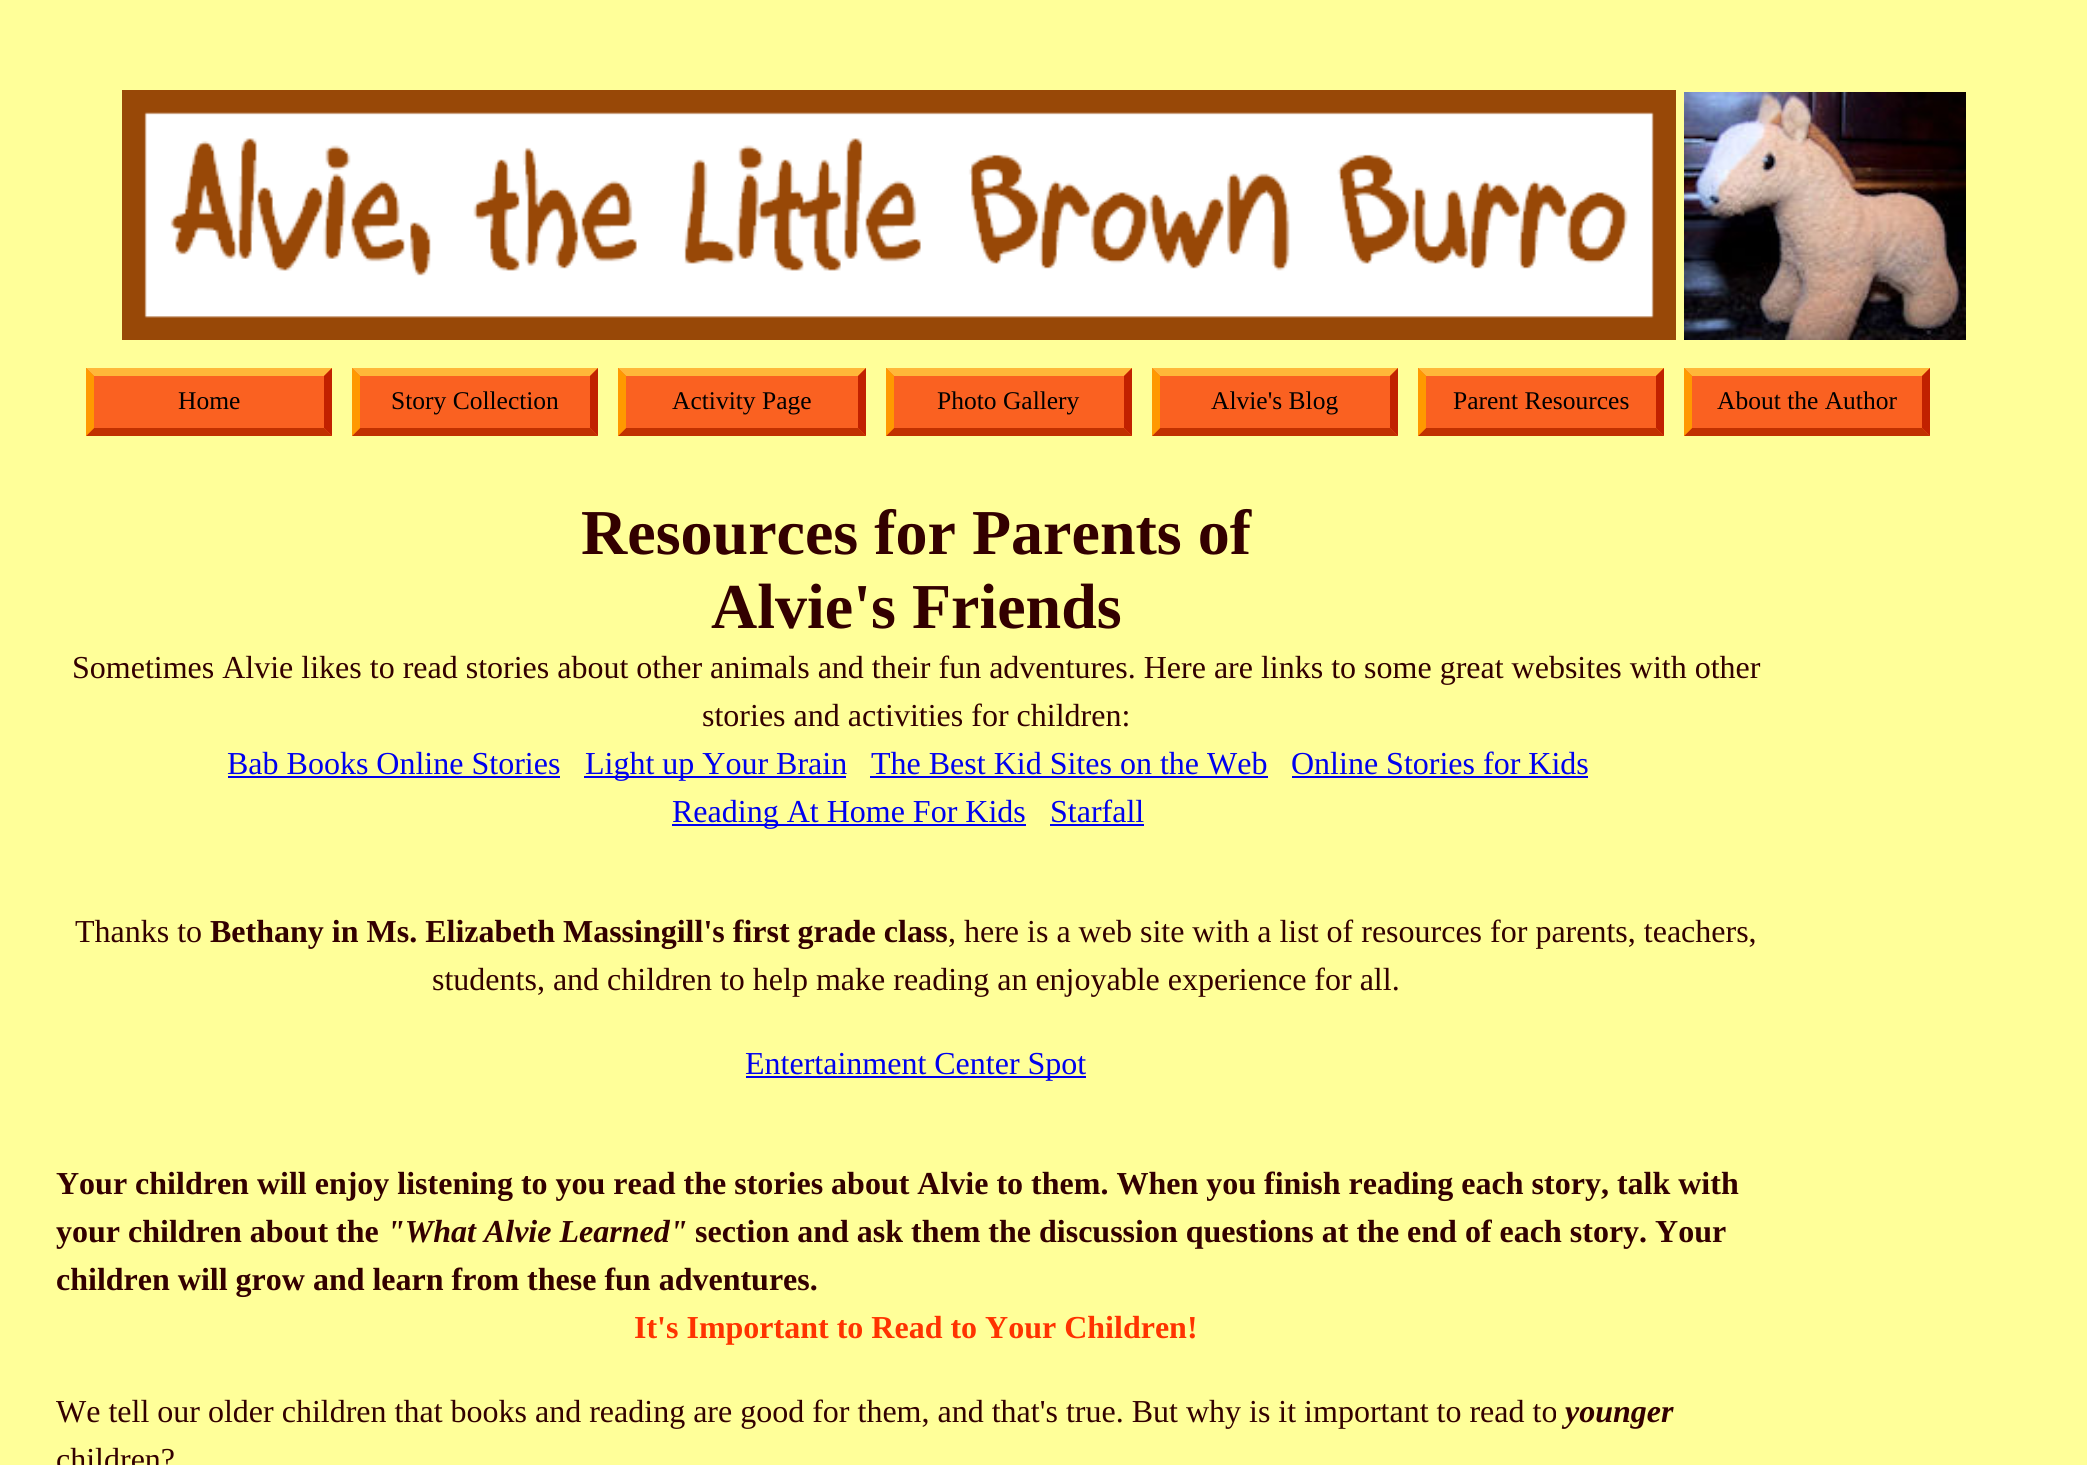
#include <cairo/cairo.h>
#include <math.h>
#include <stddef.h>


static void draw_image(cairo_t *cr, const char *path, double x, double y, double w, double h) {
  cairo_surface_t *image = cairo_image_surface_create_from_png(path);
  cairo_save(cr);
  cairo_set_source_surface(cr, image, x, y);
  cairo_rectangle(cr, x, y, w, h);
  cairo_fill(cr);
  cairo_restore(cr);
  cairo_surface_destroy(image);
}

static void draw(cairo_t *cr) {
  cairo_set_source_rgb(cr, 1, 1, 153 / 255.0);
  cairo_paint(cr);
  draw_image(cr, "images/1.png", 122, 90, 1554, 250);
  draw_image(cr, "images/2.png", 1684, 92, 282, 248);
  cairo_set_source_rgb(cr, 250 / 255.0, 97 / 255.0, 33 / 255.0);
  cairo_rectangle(cr, 86, 368, 246, 68);
  cairo_fill(cr);
  cairo_set_source_rgb(cr, 1, 183 / 255.0, 57 / 255.0);
  cairo_new_path(cr);
  cairo_move_to(cr, 86, 368);
  cairo_line_to(cr, 332, 368);
  cairo_line_to(cr, 324, 376);
  cairo_line_to(cr, 94, 376);
  cairo_close_path(cr);
  cairo_fill(cr);
  cairo_set_source_rgb(cr, 193 / 255.0, 33 / 255.0, 0);
  cairo_new_path(cr);
  cairo_move_to(cr, 332, 368);
  cairo_line_to(cr, 332, 436);
  cairo_line_to(cr, 324, 428);
  cairo_line_to(cr, 324, 376);
  cairo_close_path(cr);
  cairo_fill(cr);
  cairo_set_source_rgb(cr, 193 / 255.0, 49 / 255.0, 0);
  cairo_new_path(cr);
  cairo_move_to(cr, 332, 436);
  cairo_line_to(cr, 86, 436);
  cairo_line_to(cr, 94, 428);
  cairo_line_to(cr, 324, 428);
  cairo_close_path(cr);
  cairo_fill(cr);
  cairo_set_source_rgb(cr, 1, 153 / 255.0, 0);
  cairo_new_path(cr);
  cairo_move_to(cr, 86, 436);
  cairo_line_to(cr, 86, 368);
  cairo_line_to(cr, 94, 376);
  cairo_line_to(cr, 94, 428);
  cairo_close_path(cr);
  cairo_fill(cr);
  cairo_set_source_rgb(cr, 250 / 255.0, 97 / 255.0, 33 / 255.0);
  cairo_rectangle(cr, 352, 368, 246, 68);
  cairo_fill(cr);
  cairo_set_source_rgb(cr, 1, 183 / 255.0, 57 / 255.0);
  cairo_new_path(cr);
  cairo_move_to(cr, 352, 368);
  cairo_line_to(cr, 598, 368);
  cairo_line_to(cr, 590, 376);
  cairo_line_to(cr, 360, 376);
  cairo_close_path(cr);
  cairo_fill(cr);
  cairo_set_source_rgb(cr, 193 / 255.0, 33 / 255.0, 0);
  cairo_new_path(cr);
  cairo_move_to(cr, 598, 368);
  cairo_line_to(cr, 598, 436);
  cairo_line_to(cr, 590, 428);
  cairo_line_to(cr, 590, 376);
  cairo_close_path(cr);
  cairo_fill(cr);
  cairo_set_source_rgb(cr, 193 / 255.0, 49 / 255.0, 0);
  cairo_new_path(cr);
  cairo_move_to(cr, 598, 436);
  cairo_line_to(cr, 352, 436);
  cairo_line_to(cr, 360, 428);
  cairo_line_to(cr, 590, 428);
  cairo_close_path(cr);
  cairo_fill(cr);
  cairo_set_source_rgb(cr, 1, 153 / 255.0, 0);
  cairo_new_path(cr);
  cairo_move_to(cr, 352, 436);
  cairo_line_to(cr, 352, 368);
  cairo_line_to(cr, 360, 376);
  cairo_line_to(cr, 360, 428);
  cairo_close_path(cr);
  cairo_fill(cr);
  cairo_set_source_rgb(cr, 250 / 255.0, 97 / 255.0, 33 / 255.0);
  cairo_rectangle(cr, 618, 368, 248, 68);
  cairo_fill(cr);
  cairo_set_source_rgb(cr, 1, 183 / 255.0, 57 / 255.0);
  cairo_new_path(cr);
  cairo_move_to(cr, 618, 368);
  cairo_line_to(cr, 866, 368);
  cairo_line_to(cr, 858, 376);
  cairo_line_to(cr, 626, 376);
  cairo_close_path(cr);
  cairo_fill(cr);
  cairo_set_source_rgb(cr, 193 / 255.0, 33 / 255.0, 0);
  cairo_new_path(cr);
  cairo_move_to(cr, 866, 368);
  cairo_line_to(cr, 866, 436);
  cairo_line_to(cr, 858, 428);
  cairo_line_to(cr, 858, 376);
  cairo_close_path(cr);
  cairo_fill(cr);
  cairo_set_source_rgb(cr, 193 / 255.0, 49 / 255.0, 0);
  cairo_new_path(cr);
  cairo_move_to(cr, 866, 436);
  cairo_line_to(cr, 618, 436);
  cairo_line_to(cr, 626, 428);
  cairo_line_to(cr, 858, 428);
  cairo_close_path(cr);
  cairo_fill(cr);
  cairo_set_source_rgb(cr, 1, 153 / 255.0, 0);
  cairo_new_path(cr);
  cairo_move_to(cr, 618, 436);
  cairo_line_to(cr, 618, 368);
  cairo_line_to(cr, 626, 376);
  cairo_line_to(cr, 626, 428);
  cairo_close_path(cr);
  cairo_fill(cr);
  cairo_set_source_rgb(cr, 250 / 255.0, 97 / 255.0, 33 / 255.0);
  cairo_rectangle(cr, 886, 368, 246, 68);
  cairo_fill(cr);
  cairo_set_source_rgb(cr, 1, 183 / 255.0, 57 / 255.0);
  cairo_new_path(cr);
  cairo_move_to(cr, 886, 368);
  cairo_line_to(cr, 1132, 368);
  cairo_line_to(cr, 1124, 376);
  cairo_line_to(cr, 894, 376);
  cairo_close_path(cr);
  cairo_fill(cr);
  cairo_set_source_rgb(cr, 193 / 255.0, 33 / 255.0, 0);
  cairo_new_path(cr);
  cairo_move_to(cr, 1132, 368);
  cairo_line_to(cr, 1132, 436);
  cairo_line_to(cr, 1124, 428);
  cairo_line_to(cr, 1124, 376);
  cairo_close_path(cr);
  cairo_fill(cr);
  cairo_set_source_rgb(cr, 193 / 255.0, 49 / 255.0, 0);
  cairo_new_path(cr);
  cairo_move_to(cr, 1132, 436);
  cairo_line_to(cr, 886, 436);
  cairo_line_to(cr, 894, 428);
  cairo_line_to(cr, 1124, 428);
  cairo_close_path(cr);
  cairo_fill(cr);
  cairo_set_source_rgb(cr, 1, 153 / 255.0, 0);
  cairo_new_path(cr);
  cairo_move_to(cr, 886, 436);
  cairo_line_to(cr, 886, 368);
  cairo_line_to(cr, 894, 376);
  cairo_line_to(cr, 894, 428);
  cairo_close_path(cr);
  cairo_fill(cr);
  cairo_set_source_rgb(cr, 250 / 255.0, 97 / 255.0, 33 / 255.0);
  cairo_rectangle(cr, 1152, 368, 246, 68);
  cairo_fill(cr);
  cairo_set_source_rgb(cr, 1, 183 / 255.0, 57 / 255.0);
  cairo_new_path(cr);
  cairo_move_to(cr, 1152, 368);
  cairo_line_to(cr, 1398, 368);
  cairo_line_to(cr, 1390, 376);
  cairo_line_to(cr, 1160, 376);
  cairo_close_path(cr);
  cairo_fill(cr);
  cairo_set_source_rgb(cr, 193 / 255.0, 33 / 255.0, 0);
  cairo_new_path(cr);
  cairo_move_to(cr, 1398, 368);
  cairo_line_to(cr, 1398, 436);
  cairo_line_to(cr, 1390, 428);
  cairo_line_to(cr, 1390, 376);
  cairo_close_path(cr);
  cairo_fill(cr);
  cairo_set_source_rgb(cr, 193 / 255.0, 49 / 255.0, 0);
  cairo_new_path(cr);
  cairo_move_to(cr, 1398, 436);
  cairo_line_to(cr, 1152, 436);
  cairo_line_to(cr, 1160, 428);
  cairo_line_to(cr, 1390, 428);
  cairo_close_path(cr);
  cairo_fill(cr);
  cairo_set_source_rgb(cr, 1, 153 / 255.0, 0);
  cairo_new_path(cr);
  cairo_move_to(cr, 1152, 436);
  cairo_line_to(cr, 1152, 368);
  cairo_line_to(cr, 1160, 376);
  cairo_line_to(cr, 1160, 428);
  cairo_close_path(cr);
  cairo_fill(cr);
  cairo_set_source_rgb(cr, 250 / 255.0, 97 / 255.0, 33 / 255.0);
  cairo_rectangle(cr, 1418, 368, 246, 68);
  cairo_fill(cr);
  cairo_set_source_rgb(cr, 1, 183 / 255.0, 57 / 255.0);
  cairo_new_path(cr);
  cairo_move_to(cr, 1418, 368);
  cairo_line_to(cr, 1664, 368);
  cairo_line_to(cr, 1656, 376);
  cairo_line_to(cr, 1426, 376);
  cairo_close_path(cr);
  cairo_fill(cr);
  cairo_set_source_rgb(cr, 193 / 255.0, 33 / 255.0, 0);
  cairo_new_path(cr);
  cairo_move_to(cr, 1664, 368);
  cairo_line_to(cr, 1664, 436);
  cairo_line_to(cr, 1656, 428);
  cairo_line_to(cr, 1656, 376);
  cairo_close_path(cr);
  cairo_fill(cr);
  cairo_set_source_rgb(cr, 193 / 255.0, 49 / 255.0, 0);
  cairo_new_path(cr);
  cairo_move_to(cr, 1664, 436);
  cairo_line_to(cr, 1418, 436);
  cairo_line_to(cr, 1426, 428);
  cairo_line_to(cr, 1656, 428);
  cairo_close_path(cr);
  cairo_fill(cr);
  cairo_set_source_rgb(cr, 1, 153 / 255.0, 0);
  cairo_new_path(cr);
  cairo_move_to(cr, 1418, 436);
  cairo_line_to(cr, 1418, 368);
  cairo_line_to(cr, 1426, 376);
  cairo_line_to(cr, 1426, 428);
  cairo_close_path(cr);
  cairo_fill(cr);
  cairo_set_source_rgb(cr, 250 / 255.0, 97 / 255.0, 33 / 255.0);
  cairo_rectangle(cr, 1684, 368, 246, 68);
  cairo_fill(cr);
  cairo_set_source_rgb(cr, 1, 183 / 255.0, 57 / 255.0);
  cairo_new_path(cr);
  cairo_move_to(cr, 1684, 368);
  cairo_line_to(cr, 1930, 368);
  cairo_line_to(cr, 1922, 376);
  cairo_line_to(cr, 1692, 376);
  cairo_close_path(cr);
  cairo_fill(cr);
  cairo_set_source_rgb(cr, 193 / 255.0, 33 / 255.0, 0);
  cairo_new_path(cr);
  cairo_move_to(cr, 1930, 368);
  cairo_line_to(cr, 1930, 436);
  cairo_line_to(cr, 1922, 428);
  cairo_line_to(cr, 1922, 376);
  cairo_close_path(cr);
  cairo_fill(cr);
  cairo_set_source_rgb(cr, 193 / 255.0, 49 / 255.0, 0);
  cairo_new_path(cr);
  cairo_move_to(cr, 1930, 436);
  cairo_line_to(cr, 1684, 436);
  cairo_line_to(cr, 1692, 428);
  cairo_line_to(cr, 1922, 428);
  cairo_close_path(cr);
  cairo_fill(cr);
  cairo_set_source_rgb(cr, 1, 153 / 255.0, 0);
  cairo_new_path(cr);
  cairo_move_to(cr, 1684, 436);
  cairo_line_to(cr, 1684, 368);
  cairo_line_to(cr, 1692, 376);
  cairo_line_to(cr, 1692, 428);
  cairo_close_path(cr);
  cairo_fill(cr);
  cairo_set_source_rgb(cr, 0, 0, 238 / 255.0);
  cairo_rectangle(cr, 228, 776, 332, 2);
  cairo_fill(cr);
  cairo_rectangle(cr, 584, 776, 262, 2);
  cairo_fill(cr);
  cairo_rectangle(cr, 870, 776, 398, 2);
  cairo_fill(cr);
  cairo_rectangle(cr, 1292, 776, 296, 2);
  cairo_fill(cr);
  cairo_rectangle(cr, 672, 824, 354, 2);
  cairo_fill(cr);
  cairo_rectangle(cr, 1050, 824, 94, 2);
  cairo_fill(cr);
  cairo_rectangle(cr, 746, 1076, 340, 2);
  cairo_fill(cr);
  cairo_select_font_face(cr, "Liberation Serif", CAIRO_FONT_SLANT_NORMAL, CAIRO_FONT_WEIGHT_NORMAL);
  cairo_set_font_size(cr, 25.5);
  cairo_set_source_rgb(cr, 0, 0, 0);
  cairo_move_to(cr, 178, 409);
  cairo_show_text(cr, "Home");
  cairo_move_to(cr, 391, 409);
  cairo_show_text(cr, "Story Collection");
  cairo_move_to(cr, 672, 409);
  cairo_show_text(cr, "Activity Page");
  cairo_move_to(cr, 937, 409);
  cairo_show_text(cr, "Photo Gallery");
  cairo_move_to(cr, 1211, 409);
  cairo_show_text(cr, "Alvie's Blog");
  cairo_move_to(cr, 1453, 409);
  cairo_show_text(cr, "Parent Resources");
  cairo_move_to(cr, 1717, 409);
  cairo_show_text(cr, "About the Author");
  cairo_select_font_face(cr, "Liberation Serif", CAIRO_FONT_SLANT_NORMAL, CAIRO_FONT_WEIGHT_BOLD);
  cairo_set_font_size(cr, 64);
  cairo_set_source_rgb(cr, 51 / 255.0, 0, 0);
  cairo_move_to(cr, 581, 554);
  cairo_show_text(cr, "Resources for Parents of");
  cairo_move_to(cr, 711, 628);
  cairo_show_text(cr, "Alvie's Friends");
  cairo_select_font_face(cr, "Liberation Serif", CAIRO_FONT_SLANT_NORMAL, CAIRO_FONT_WEIGHT_NORMAL);
  cairo_set_font_size(cr, 32);
  cairo_move_to(cr, 72, 678);
  cairo_show_text(cr, "Sometimes Alvie likes to read stories about other animals and their fun adventures. Here are links to some great websites with other");
  cairo_move_to(cr, 702, 726);
  cairo_show_text(cr, "stories and activities for children:");
  cairo_set_source_rgb(cr, 0, 0, 238 / 255.0);
  cairo_move_to(cr, 227, 774);
  cairo_show_text(cr, "Bab Books Online Stories");
  cairo_move_to(cr, 585, 774);
  cairo_show_text(cr, "Light up Your Brain");
  cairo_move_to(cr, 871, 774);
  cairo_show_text(cr, "The Best Kid Sites on the Web");
  cairo_move_to(cr, 1291, 774);
  cairo_show_text(cr, "Online Stories for Kids");
  cairo_move_to(cr, 672, 822);
  cairo_show_text(cr, "Reading At Home For Kids");
  cairo_move_to(cr, 1050, 822);
  cairo_show_text(cr, "Starfall");
  cairo_set_source_rgb(cr, 51 / 255.0, 0, 0);
  cairo_move_to(cr, 75, 942);
  cairo_show_text(cr, "Thanks to");
  cairo_select_font_face(cr, "Liberation Serif", CAIRO_FONT_SLANT_NORMAL, CAIRO_FONT_WEIGHT_BOLD);
  cairo_move_to(cr, 210, 942);
  cairo_show_text(cr, "Bethany in Ms. Elizabeth Massingill's first grade class");
  cairo_select_font_face(cr, "Liberation Serif", CAIRO_FONT_SLANT_NORMAL, CAIRO_FONT_WEIGHT_NORMAL);
  cairo_move_to(cr, 948, 942);
  cairo_show_text(cr, ", here is a web site with a list of resources for parents, teachers,");
  cairo_move_to(cr, 432, 990);
  cairo_show_text(cr, "students, and children to help make reading an enjoyable experience for all.");
  cairo_set_source_rgb(cr, 0, 0, 238 / 255.0);
  cairo_move_to(cr, 745, 1074);
  cairo_show_text(cr, "Entertainment Center Spot");
  cairo_select_font_face(cr, "Liberation Serif", CAIRO_FONT_SLANT_NORMAL, CAIRO_FONT_WEIGHT_BOLD);
  cairo_set_source_rgb(cr, 51 / 255.0, 0, 0);
  cairo_move_to(cr, 56, 1194);
  cairo_show_text(cr, "Your children will enjoy listening to you read the stories about Alvie to them. When you finish reading each story, talk with");
  cairo_move_to(cr, 56, 1242);
  cairo_show_text(cr, "your children about the");
  cairo_select_font_face(cr, "Liberation Serif", CAIRO_FONT_SLANT_ITALIC, CAIRO_FONT_WEIGHT_BOLD);
  cairo_move_to(cr, 387, 1242);
  cairo_show_text(cr, "\"What Alvie Learned\"");
  cairo_select_font_face(cr, "Liberation Serif", CAIRO_FONT_SLANT_NORMAL, CAIRO_FONT_WEIGHT_BOLD);
  cairo_move_to(cr, 695, 1242);
  cairo_show_text(cr, "section and ask them the discussion questions at the end of each story. Your");
  cairo_move_to(cr, 56, 1290);
  cairo_show_text(cr, "children will grow and learn from these fun adventures.");
  cairo_set_source_rgb(cr, 1, 51 / 255.0, 0);
  cairo_move_to(cr, 634, 1338);
  cairo_show_text(cr, "It's Important to Read to Your Children!");
  cairo_select_font_face(cr, "Liberation Serif", CAIRO_FONT_SLANT_NORMAL, CAIRO_FONT_WEIGHT_NORMAL);
  cairo_set_source_rgb(cr, 51 / 255.0, 0, 0);
  cairo_move_to(cr, 56, 1422);
  cairo_show_text(cr, "We tell our older children that books and reading are good for them, and that's true. But why is it important to read to");
  cairo_select_font_face(cr, "Liberation Serif", CAIRO_FONT_SLANT_ITALIC, CAIRO_FONT_WEIGHT_BOLD);
  cairo_move_to(cr, 1565, 1422);
  cairo_show_text(cr, "younger");
  cairo_select_font_face(cr, "Liberation Serif", CAIRO_FONT_SLANT_NORMAL, CAIRO_FONT_WEIGHT_NORMAL);
  cairo_move_to(cr, 56, 1470);
  cairo_show_text(cr, "children?");
}

int main(void) {
  cairo_surface_t *surface = cairo_image_surface_create(CAIRO_FORMAT_RGB24, 2087, 1465);
  cairo_t *cr = cairo_create(surface);
  cairo_font_options_t *options = cairo_font_options_create();
  cairo_font_options_set_hint_metrics(options, CAIRO_HINT_METRICS_OFF);
  cairo_font_options_set_hint_style(options, CAIRO_HINT_STYLE_NONE);
  cairo_set_font_options(cr, options);
  cairo_set_miter_limit(cr, 4);
  draw(cr);
  cairo_surface_write_to_png(surface, "out.png");
  cairo_font_options_destroy(options);
  cairo_destroy(cr);
  cairo_surface_destroy(surface);
  return 0;
}
